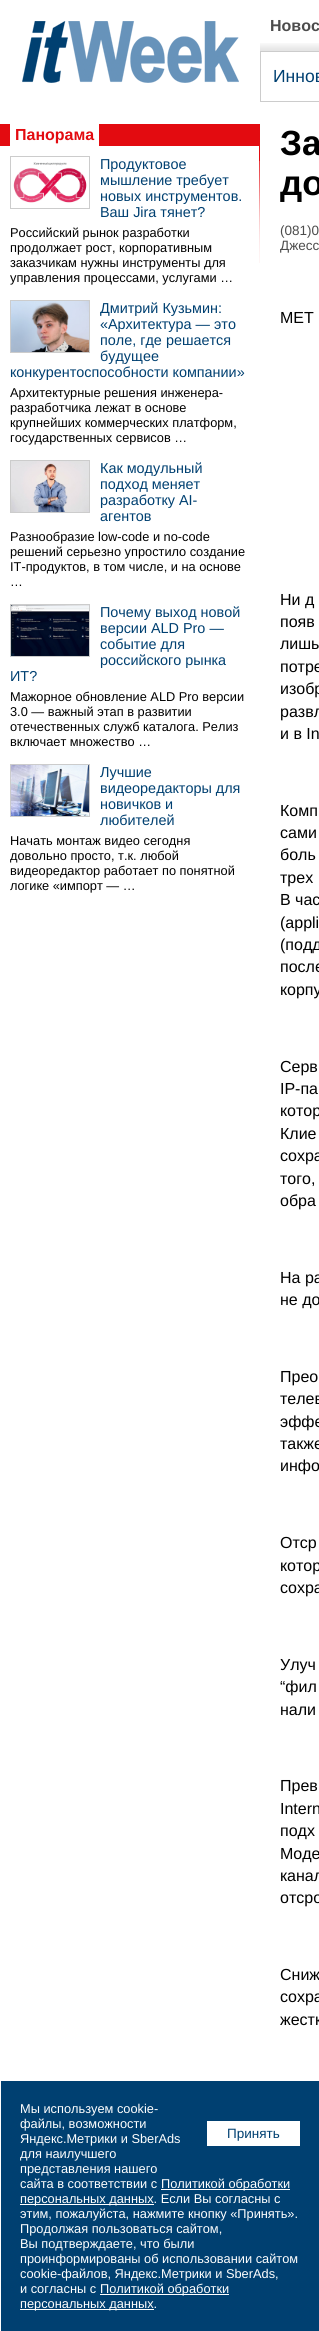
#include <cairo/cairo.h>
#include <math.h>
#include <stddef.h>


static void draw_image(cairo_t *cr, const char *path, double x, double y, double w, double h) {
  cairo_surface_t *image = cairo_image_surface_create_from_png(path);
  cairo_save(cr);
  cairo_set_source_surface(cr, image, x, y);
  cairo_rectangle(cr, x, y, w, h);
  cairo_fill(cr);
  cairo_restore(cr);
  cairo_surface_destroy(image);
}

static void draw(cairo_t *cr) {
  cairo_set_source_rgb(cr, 1, 1, 1);
  cairo_paint(cr);
  draw_image(cr, "images/1.png", 22, 21, 217, 62);
  draw_image(cr, "images/2.png", 260, 43, 59, 8);
  cairo_set_source_rgb(cr, 204 / 255.0, 204 / 255.0, 204 / 255.0);
  cairo_rectangle(cr, 260, 51, 59, 1);
  cairo_fill(cr);
  cairo_rectangle(cr, 260, 101, 59, 1);
  cairo_fill(cr);
  cairo_rectangle(cr, 260, 51, 1, 51);
  cairo_fill(cr);
  cairo_set_source_rgb(cr, 227 / 255.0, 11 / 255.0, 16 / 255.0);
  cairo_rectangle(cr, 0, 124, 260, 22);
  cairo_fill(cr);
  cairo_set_source_rgb(cr, 1, 1, 1);
  cairo_rectangle(cr, 10, 124, 89, 22);
  cairo_fill(cr);
  cairo_rectangle(cr, 10.5, 156.5, 79, 52);
  cairo_set_source_rgb(cr, 204 / 255.0, 204 / 255.0, 204 / 255.0);
  cairo_set_line_width(cr, 1);
  cairo_stroke(cr);
  draw_image(cr, "images/3.png", 13, 162, 74, 41);
  cairo_rectangle(cr, 10.5, 300.5, 79, 52);
  cairo_stroke(cr);
  draw_image(cr, "images/4.png", 11, 301, 78, 51);
  cairo_rectangle(cr, 10.5, 460.5, 79, 52);
  cairo_stroke(cr);
  draw_image(cr, "images/5.png", 11, 461, 78, 51);
  cairo_rectangle(cr, 10.5, 604.5, 79, 52);
  cairo_stroke(cr);
  draw_image(cr, "images/6.png", 11, 605, 78, 51);
  cairo_rectangle(cr, 10.5, 764.5, 79, 52);
  cairo_stroke(cr);
  draw_image(cr, "images/7.png", 11, 765, 78, 51);
  draw_image(cr, "images/8.png", 259, 146, 1, 117);
  cairo_set_source_rgb(cr, 0, 64 / 255.0, 113 / 255.0);
  cairo_rectangle(cr, 1, 2081, 318, 250);
  cairo_fill(cr);
  cairo_set_source_rgb(cr, 1, 1, 1);
  cairo_rectangle(cr, 207, 2121, 93, 25);
  cairo_fill(cr);
  cairo_rectangle(cr, 161, 2189, 129, 1);
  cairo_fill(cr);
  cairo_rectangle(cr, 20, 2204, 134, 1);
  cairo_fill(cr);
  cairo_rectangle(cr, 100, 2294, 129, 1);
  cairo_fill(cr);
  cairo_rectangle(cr, 20, 2309, 134, 1);
  cairo_fill(cr);
  cairo_select_font_face(cr, "Liberation Sans", CAIRO_FONT_SLANT_NORMAL, CAIRO_FONT_WEIGHT_BOLD);
  cairo_set_font_size(cr, 16);
  cairo_set_source_rgb(cr, 76 / 255.0, 76 / 255.0, 76 / 255.0);
  cairo_move_to(cr, 270, 31);
  cairo_show_text(cr, "Новос");
  cairo_select_font_face(cr, "Liberation Sans", CAIRO_FONT_SLANT_NORMAL, CAIRO_FONT_WEIGHT_NORMAL);
  cairo_set_font_size(cr, 17.5);
  cairo_set_source_rgb(cr, 0, 64 / 255.0, 113 / 255.0);
  cairo_move_to(cr, 273, 82);
  cairo_show_text(cr, "Иннов");
  cairo_select_font_face(cr, "Liberation Sans", CAIRO_FONT_SLANT_NORMAL, CAIRO_FONT_WEIGHT_BOLD);
  cairo_set_font_size(cr, 16);
  cairo_set_source_rgb(cr, 227 / 255.0, 11 / 255.0, 16 / 255.0);
  cairo_move_to(cr, 15, 140);
  cairo_show_text(cr, "Панорама");
  cairo_select_font_face(cr, "Liberation Sans", CAIRO_FONT_SLANT_NORMAL, CAIRO_FONT_WEIGHT_NORMAL);
  cairo_set_font_size(cr, 14.4);
  cairo_set_source_rgb(cr, 0, 64 / 255.0, 113 / 255.0);
  cairo_move_to(cr, 100, 169);
  cairo_show_text(cr, "Продуктовое");
  cairo_move_to(cr, 100, 185);
  cairo_show_text(cr, "мышление требует");
  cairo_move_to(cr, 100, 201);
  cairo_show_text(cr, "новых инструментов.");
  cairo_move_to(cr, 100, 217);
  cairo_show_text(cr, "Ваш Jira тянет?");
  cairo_set_font_size(cr, 12.8);
  cairo_set_source_rgb(cr, 0, 0, 0);
  cairo_move_to(cr, 10, 237);
  cairo_show_text(cr, "Российский рынок разработки");
  cairo_move_to(cr, 10, 252);
  cairo_show_text(cr, "продолжает рост, корпоративным");
  cairo_move_to(cr, 10, 267);
  cairo_show_text(cr, "заказчикам нужны инструменты для");
  cairo_move_to(cr, 10, 282);
  cairo_show_text(cr, "управления процессами, услугами …");
  cairo_set_font_size(cr, 14.4);
  cairo_set_source_rgb(cr, 0, 64 / 255.0, 113 / 255.0);
  cairo_move_to(cr, 100, 313);
  cairo_show_text(cr, "Дмитрий Кузьмин:");
  cairo_move_to(cr, 100, 329);
  cairo_show_text(cr, "«Архитектура — это");
  cairo_move_to(cr, 100, 345);
  cairo_show_text(cr, "поле, где решается");
  cairo_move_to(cr, 100, 361);
  cairo_show_text(cr, "будущее");
  cairo_move_to(cr, 10, 377);
  cairo_show_text(cr, "конкурентоспособности компании»");
  cairo_set_font_size(cr, 12.8);
  cairo_set_source_rgb(cr, 0, 0, 0);
  cairo_move_to(cr, 10, 397);
  cairo_show_text(cr, "Архитектурные решения инженера-");
  cairo_move_to(cr, 10, 412);
  cairo_show_text(cr, "разработчика лежат в основе");
  cairo_move_to(cr, 10, 427);
  cairo_show_text(cr, "крупнейших коммерческих платформ,");
  cairo_move_to(cr, 10, 442);
  cairo_show_text(cr, "государственных сервисов …");
  cairo_set_font_size(cr, 14.4);
  cairo_set_source_rgb(cr, 0, 64 / 255.0, 113 / 255.0);
  cairo_move_to(cr, 100, 473);
  cairo_show_text(cr, "Как модульный");
  cairo_move_to(cr, 100, 489);
  cairo_show_text(cr, "подход меняет");
  cairo_move_to(cr, 100, 505);
  cairo_show_text(cr, "разработку AI-");
  cairo_move_to(cr, 100, 521);
  cairo_show_text(cr, "агентов");
  cairo_set_font_size(cr, 12.8);
  cairo_set_source_rgb(cr, 0, 0, 0);
  cairo_move_to(cr, 10, 541);
  cairo_show_text(cr, "Разнообразие low-code и no-code");
  cairo_move_to(cr, 10, 556);
  cairo_show_text(cr, "решений серьезно упростило создание");
  cairo_move_to(cr, 10, 571);
  cairo_show_text(cr, "IT-продуктов, в том числе, и на основе");
  cairo_move_to(cr, 10, 586);
  cairo_show_text(cr, "…");
  cairo_set_font_size(cr, 14.4);
  cairo_set_source_rgb(cr, 0, 64 / 255.0, 113 / 255.0);
  cairo_move_to(cr, 100, 617);
  cairo_show_text(cr, "Почему выход новой");
  cairo_move_to(cr, 100, 633);
  cairo_show_text(cr, "версии ALD Pro —");
  cairo_move_to(cr, 100, 649);
  cairo_show_text(cr, "событие для");
  cairo_move_to(cr, 100, 665);
  cairo_show_text(cr, "российского рынка");
  cairo_move_to(cr, 10, 681);
  cairo_show_text(cr, "ИТ?");
  cairo_set_font_size(cr, 12.8);
  cairo_set_source_rgb(cr, 0, 0, 0);
  cairo_move_to(cr, 10, 701);
  cairo_show_text(cr, "Мажорное обновление ALD Pro версии");
  cairo_move_to(cr, 10, 716);
  cairo_show_text(cr, "3.0 — важный этап в развитии");
  cairo_move_to(cr, 10, 731);
  cairo_show_text(cr, "отечественных служб каталога. Релиз");
  cairo_move_to(cr, 10, 746);
  cairo_show_text(cr, "включает множество …");
  cairo_set_font_size(cr, 14.4);
  cairo_set_source_rgb(cr, 0, 64 / 255.0, 113 / 255.0);
  cairo_move_to(cr, 100, 777);
  cairo_show_text(cr, "Лучшие");
  cairo_move_to(cr, 100, 793);
  cairo_show_text(cr, "видеоредакторы для");
  cairo_move_to(cr, 100, 809);
  cairo_show_text(cr, "новичков и");
  cairo_move_to(cr, 100, 825);
  cairo_show_text(cr, "любителей");
  cairo_set_font_size(cr, 12.8);
  cairo_set_source_rgb(cr, 0, 0, 0);
  cairo_move_to(cr, 10, 845);
  cairo_show_text(cr, "Начать монтаж видео сегодня");
  cairo_move_to(cr, 10, 860);
  cairo_show_text(cr, "довольно просто, т.к. любой");
  cairo_move_to(cr, 10, 875);
  cairo_show_text(cr, "видеоредактор работает по понятной");
  cairo_move_to(cr, 10, 890);
  cairo_show_text(cr, "логике «импорт — …");
  cairo_select_font_face(cr, "Liberation Sans", CAIRO_FONT_SLANT_NORMAL, CAIRO_FONT_WEIGHT_BOLD);
  cairo_set_font_size(cr, 35);
  cairo_move_to(cr, 280, 155);
  cairo_show_text(cr, "За");
  cairo_move_to(cr, 280, 195);
  cairo_show_text(cr, "до");
  cairo_select_font_face(cr, "Liberation Sans", CAIRO_FONT_SLANT_NORMAL, CAIRO_FONT_WEIGHT_NORMAL);
  cairo_set_font_size(cr, 13.5);
  cairo_set_source_rgb(cr, 76 / 255.0, 76 / 255.0, 76 / 255.0);
  cairo_move_to(cr, 280, 235);
  cairo_show_text(cr, "(081)0");
  cairo_move_to(cr, 280, 250);
  cairo_show_text(cr, "Джесс");
  cairo_set_font_size(cr, 16);
  cairo_set_source_rgb(cr, 0, 0, 0);
  cairo_move_to(cr, 280, 323);
  cairo_show_text(cr, "МЕТ");
  cairo_move_to(cr, 280, 605);
  cairo_show_text(cr, "Ни д");
  cairo_move_to(cr, 280, 627);
  cairo_show_text(cr, "появ");
  cairo_move_to(cr, 280, 649);
  cairo_show_text(cr, "лишь");
  cairo_move_to(cr, 280, 672);
  cairo_show_text(cr, "потре");
  cairo_move_to(cr, 280, 694);
  cairo_show_text(cr, "изобр");
  cairo_move_to(cr, 280, 717);
  cairo_show_text(cr, "развл");
  cairo_move_to(cr, 280, 739);
  cairo_show_text(cr, "и в In");
  cairo_move_to(cr, 280, 816);
  cairo_show_text(cr, "Комп");
  cairo_move_to(cr, 280, 838);
  cairo_show_text(cr, "сами");
  cairo_move_to(cr, 280, 860);
  cairo_show_text(cr, "боль");
  cairo_move_to(cr, 280, 883);
  cairo_show_text(cr, "трех");
  cairo_move_to(cr, 280, 905);
  cairo_show_text(cr, "В час");
  cairo_move_to(cr, 280, 928);
  cairo_show_text(cr, "(appli");
  cairo_move_to(cr, 280, 950);
  cairo_show_text(cr, "(подд");
  cairo_move_to(cr, 280, 972);
  cairo_show_text(cr, "после");
  cairo_move_to(cr, 280, 995);
  cairo_show_text(cr, "корпу");
  cairo_move_to(cr, 280, 1072);
  cairo_show_text(cr, "Серв");
  cairo_move_to(cr, 280, 1094);
  cairo_show_text(cr, "IP-па");
  cairo_move_to(cr, 280, 1116);
  cairo_show_text(cr, "котор");
  cairo_move_to(cr, 280, 1139);
  cairo_show_text(cr, "Клие");
  cairo_move_to(cr, 280, 1161);
  cairo_show_text(cr, "сохра");
  cairo_move_to(cr, 280, 1184);
  cairo_show_text(cr, "того,");
  cairo_move_to(cr, 280, 1206);
  cairo_show_text(cr, "обра");
  cairo_move_to(cr, 280, 1283);
  cairo_show_text(cr, "На ра");
  cairo_move_to(cr, 280, 1305);
  cairo_show_text(cr, "не до");
  cairo_move_to(cr, 280, 1382);
  cairo_show_text(cr, "Прео");
  cairo_move_to(cr, 280, 1404);
  cairo_show_text(cr, "телев");
  cairo_move_to(cr, 280, 1427);
  cairo_show_text(cr, "эффе");
  cairo_move_to(cr, 280, 1449);
  cairo_show_text(cr, "также");
  cairo_move_to(cr, 280, 1471);
  cairo_show_text(cr, "инфо");
  cairo_move_to(cr, 280, 1548);
  cairo_show_text(cr, "Отср");
  cairo_move_to(cr, 280, 1571);
  cairo_show_text(cr, "котор");
  cairo_move_to(cr, 280, 1593);
  cairo_show_text(cr, "сохра");
  cairo_move_to(cr, 280, 1670);
  cairo_show_text(cr, "Улуч");
  cairo_move_to(cr, 280, 1692);
  cairo_show_text(cr, "“фил");
  cairo_move_to(cr, 280, 1715);
  cairo_show_text(cr, "нали");
  cairo_move_to(cr, 280, 1791);
  cairo_show_text(cr, "Прев");
  cairo_move_to(cr, 280, 1814);
  cairo_show_text(cr, "Intern");
  cairo_move_to(cr, 280, 1836);
  cairo_show_text(cr, "подх");
  cairo_move_to(cr, 280, 1859);
  cairo_show_text(cr, "Моде");
  cairo_move_to(cr, 280, 1881);
  cairo_show_text(cr, "канал");
  cairo_move_to(cr, 280, 1903);
  cairo_show_text(cr, "отсро");
  cairo_move_to(cr, 280, 1980);
  cairo_show_text(cr, "Сниж");
  cairo_move_to(cr, 280, 2002);
  cairo_show_text(cr, "сохра");
  cairo_move_to(cr, 280, 2025);
  cairo_show_text(cr, "жестк");
  cairo_set_font_size(cr, 12.8);
  cairo_set_source_rgb(cr, 1, 1, 1);
  cairo_move_to(cr, 20, 2113);
  cairo_show_text(cr, "Мы используем cookie-");
  cairo_move_to(cr, 20, 2128);
  cairo_show_text(cr, "файлы, возможности");
  cairo_move_to(cr, 20, 2143);
  cairo_show_text(cr, "Яндекс.Метрики и SberAds");
  cairo_set_font_size(cr, 13.5);
  cairo_set_source_rgb(cr, 0, 64 / 255.0, 113 / 255.0);
  cairo_move_to(cr, 227, 2138);
  cairo_show_text(cr, "Принять");
  cairo_set_font_size(cr, 12.8);
  cairo_set_source_rgb(cr, 1, 1, 1);
  cairo_move_to(cr, 20, 2158);
  cairo_show_text(cr, "для наилучшего");
  cairo_move_to(cr, 20, 2173);
  cairo_show_text(cr, "представления нашего");
  cairo_move_to(cr, 20, 2188);
  cairo_show_text(cr, "сайта в соответствии с");
  cairo_move_to(cr, 161, 2188);
  cairo_show_text(cr, "Политикой обработки");
  cairo_move_to(cr, 20, 2203);
  cairo_show_text(cr, "персональных данных. Если Вы согласны с");
  cairo_move_to(cr, 20, 2218);
  cairo_show_text(cr, "этим, пожалуйста, нажмите кнопку «Принять».");
  cairo_move_to(cr, 20, 2233);
  cairo_show_text(cr, "Продолжая пользоваться сайтом,");
  cairo_move_to(cr, 20, 2248);
  cairo_show_text(cr, "Вы подтверждаете, что были");
  cairo_move_to(cr, 20, 2263);
  cairo_show_text(cr, "проинформированы об использовании сайтом");
  cairo_move_to(cr, 20, 2278);
  cairo_show_text(cr, "cookie-файлов, Яндекс.Метрики и SberAds,");
  cairo_move_to(cr, 20, 2293);
  cairo_show_text(cr, "и согласны с");
  cairo_move_to(cr, 100, 2293);
  cairo_show_text(cr, "Политикой обработки");
  cairo_move_to(cr, 20, 2308);
  cairo_show_text(cr, "персональных данных.");
}

int main(void) {
  cairo_surface_t *surface = cairo_image_surface_create(CAIRO_FORMAT_RGB24, 319, 2331);
  cairo_t *cr = cairo_create(surface);
  cairo_font_options_t *options = cairo_font_options_create();
  cairo_font_options_set_hint_metrics(options, CAIRO_HINT_METRICS_OFF);
  cairo_font_options_set_hint_style(options, CAIRO_HINT_STYLE_NONE);
  cairo_set_font_options(cr, options);
  cairo_set_miter_limit(cr, 4);
  draw(cr);
  cairo_surface_write_to_png(surface, "out.png");
  cairo_font_options_destroy(options);
  cairo_destroy(cr);
  cairo_surface_destroy(surface);
  return 0;
}
